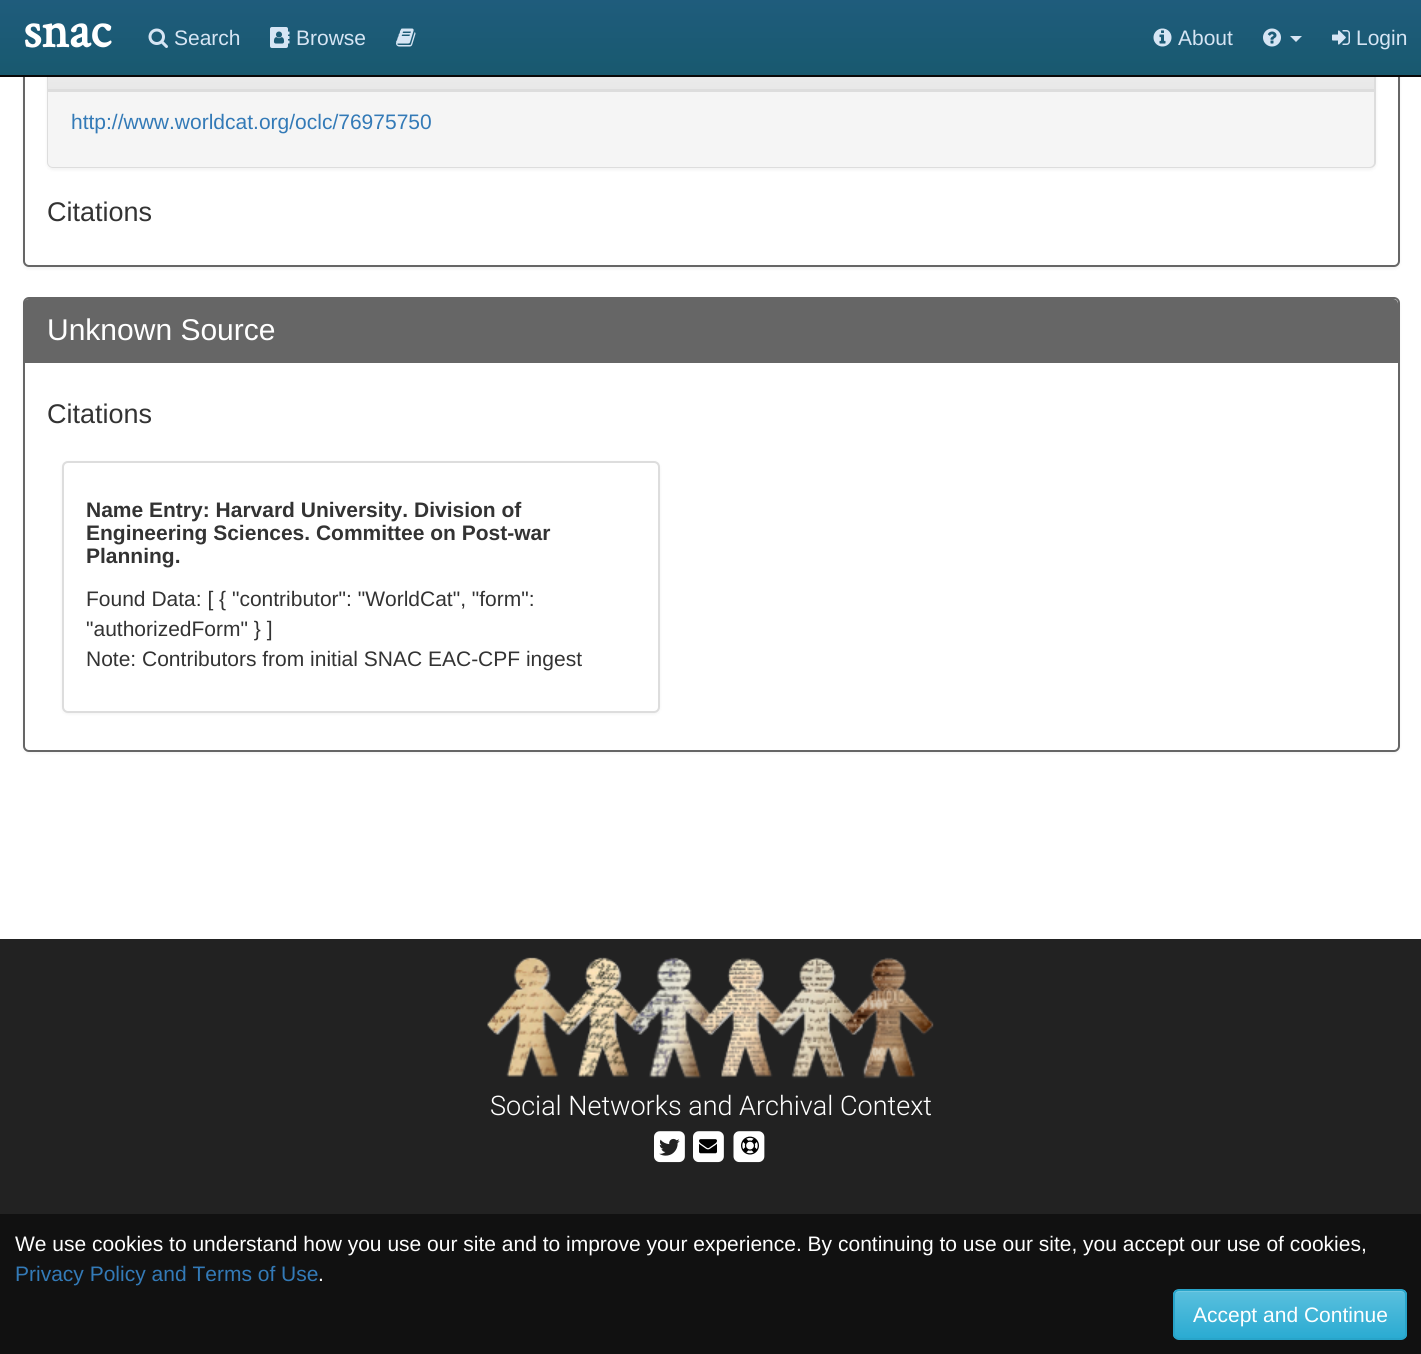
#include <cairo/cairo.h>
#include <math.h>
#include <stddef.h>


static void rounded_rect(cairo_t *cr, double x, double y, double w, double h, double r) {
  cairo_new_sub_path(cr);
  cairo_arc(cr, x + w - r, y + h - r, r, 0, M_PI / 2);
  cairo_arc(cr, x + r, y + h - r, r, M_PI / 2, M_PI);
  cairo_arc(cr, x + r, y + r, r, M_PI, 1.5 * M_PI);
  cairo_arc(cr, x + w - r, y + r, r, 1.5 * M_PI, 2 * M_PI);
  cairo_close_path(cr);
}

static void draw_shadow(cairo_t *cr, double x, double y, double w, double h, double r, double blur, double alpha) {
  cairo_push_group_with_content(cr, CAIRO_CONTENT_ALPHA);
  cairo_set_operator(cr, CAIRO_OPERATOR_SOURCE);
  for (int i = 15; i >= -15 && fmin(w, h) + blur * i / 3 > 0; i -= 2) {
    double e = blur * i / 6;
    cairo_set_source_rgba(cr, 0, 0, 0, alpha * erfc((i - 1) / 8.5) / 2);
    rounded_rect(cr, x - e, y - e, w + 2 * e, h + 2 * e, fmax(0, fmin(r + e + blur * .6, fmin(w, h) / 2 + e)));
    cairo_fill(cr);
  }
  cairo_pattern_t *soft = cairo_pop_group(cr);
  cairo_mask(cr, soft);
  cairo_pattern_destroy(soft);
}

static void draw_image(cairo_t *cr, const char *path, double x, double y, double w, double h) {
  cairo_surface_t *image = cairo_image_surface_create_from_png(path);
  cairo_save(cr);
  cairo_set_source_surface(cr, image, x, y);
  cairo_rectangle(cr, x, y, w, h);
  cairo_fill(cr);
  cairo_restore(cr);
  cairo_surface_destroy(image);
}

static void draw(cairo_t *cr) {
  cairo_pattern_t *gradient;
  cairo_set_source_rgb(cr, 1, 1, 1);
  cairo_paint(cr);
  cairo_set_source_rgb(cr, 0, 0, 0);
  draw_shadow(cr, 23, -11, 1377, 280, 6, 1.5, 0.05);
  cairo_set_source_rgb(cr, 1, 1, 1);
  rounded_rect(cr, 24, -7, 1375, 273, 5);
  cairo_fill_preserve(cr);
  cairo_set_source_rgb(cr, 102 / 255.0, 102 / 255.0, 102 / 255.0);
  cairo_stroke(cr);
  cairo_set_source_rgb(cr, 0, 0, 0);
  draw_shadow(cr, 47, 29, 1329, 141, 6, 1.5, 0.05);
  rounded_rect(cr, 48, 28, 1327, 139, 5);
  cairo_set_source_rgb(cr, 221 / 255.0, 221 / 255.0, 221 / 255.0);
  cairo_stroke(cr);
  gradient = cairo_pattern_create_linear(711, 0, 711, 75);
  cairo_pattern_add_color_stop_rgba(gradient, 0, 31 / 255.0, 92 / 255.0, 124 / 255.0, 1);
  cairo_pattern_add_color_stop_rgba(gradient, 1, 24 / 255.0, 89 / 255.0, 111 / 255.0, 1);
  cairo_set_source(cr, gradient);
  cairo_pattern_destroy(gradient);
  cairo_rectangle(cr, 0, 0, 1421, 75);
  cairo_fill(cr);
  cairo_set_source_rgb(cr, 8 / 255.0, 8 / 255.0, 8 / 255.0);
  cairo_rectangle(cr, 0, 75, 1421, 2);
  cairo_fill(cr);
  draw_image(cr, "images/1.png", 148, 28, 20, 20);
  draw_image(cr, "images/2.png", 270, 27, 20, 21);
  draw_image(cr, "images/3.png", 396, 28, 20, 19);
  draw_image(cr, "images/4.png", 1153, 28, 19, 19);
  draw_image(cr, "images/5.png", 1263, 28, 18, 19);
  cairo_set_source_rgb(cr, 214 / 255.0, 229 / 255.0, 244 / 255.0);
  cairo_new_path(cr);
  cairo_move_to(cr, 1290, 36);
  cairo_line_to(cr, 1302, 36);
  cairo_line_to(cr, 1296, 42);
  cairo_close_path(cr);
  cairo_fill(cr);
  draw_image(cr, "images/6.png", 1332, 30, 18, 15);
  gradient = cairo_pattern_create_linear(711, 28, 711, 89);
  cairo_pattern_add_color_stop_rgba(gradient, 0, 245 / 255.0, 245 / 255.0, 245 / 255.0, 1);
  cairo_pattern_add_color_stop_rgba(gradient, 1, 232 / 255.0, 232 / 255.0, 232 / 255.0, 1);
  cairo_set_source(cr, gradient);
  cairo_pattern_destroy(gradient);
  cairo_rectangle(cr, 48, 77, 1326, 12);
  cairo_fill(cr);
  cairo_set_source_rgb(cr, 221 / 255.0, 221 / 255.0, 221 / 255.0);
  cairo_rectangle(cr, 48, 89, 1326, 1);
  cairo_fill(cr);
  cairo_set_source_rgb(cr, 245 / 255.0, 245 / 255.0, 245 / 255.0);
  cairo_new_path(cr);
  cairo_move_to(cr, 48, 90);
  cairo_line_to(cr, 1374, 90);
  cairo_line_to(cr, 1374, 162);
  cairo_curve_to(cr, 1374, 165, 1372, 167, 1369, 167);
  cairo_line_to(cr, 53, 167);
  cairo_curve_to(cr, 50, 167, 48, 165, 48, 162);
  cairo_close_path(cr);
  cairo_fill(cr);
  cairo_set_source_rgb(cr, 221 / 255.0, 221 / 255.0, 221 / 255.0);
  cairo_rectangle(cr, 48, 90, 1326, 2);
  cairo_fill(cr);
  cairo_set_source_rgb(cr, 0, 0, 0);
  draw_shadow(cr, 23, 299, 1377, 454, 6, 1.5, 0.05);
  cairo_set_source_rgb(cr, 1, 1, 1);
  rounded_rect(cr, 24, 298, 1375, 453, 5);
  cairo_fill_preserve(cr);
  cairo_set_source_rgb(cr, 102 / 255.0, 102 / 255.0, 102 / 255.0);
  cairo_stroke(cr);
  cairo_new_path(cr);
  cairo_move_to(cr, 29, 299);
  cairo_line_to(cr, 1393, 299);
  cairo_curve_to(cr, 1396, 299, 1398, 301, 1398, 304);
  cairo_line_to(cr, 1398, 363);
  cairo_line_to(cr, 24, 363);
  cairo_line_to(cr, 24, 304);
  cairo_curve_to(cr, 24, 301, 26, 299, 29, 299);
  cairo_close_path(cr);
  cairo_fill(cr);
  cairo_set_source_rgb(cr, 0, 0, 0);
  draw_shadow(cr, 62, 462, 598, 252, 6, 1.5, 0.05);
  cairo_set_source_rgb(cr, 1, 1, 1);
  rounded_rect(cr, 63, 462, 596, 250, 5);
  cairo_fill_preserve(cr);
  cairo_set_source_rgb(cr, 221 / 255.0, 221 / 255.0, 221 / 255.0);
  cairo_stroke(cr);
  cairo_set_source_rgb(cr, 34 / 255.0, 34 / 255.0, 34 / 255.0);
  cairo_rectangle(cr, 0, 939, 1421, 275);
  cairo_fill(cr);
  draw_image(cr, "images/7.png", 487, 957, 447, 122);
  draw_image(cr, "images/8.png", 654, 1131, 31, 32);
  draw_image(cr, "images/9.png", 693, 1131, 31, 32);
  draw_image(cr, "images/10.png", 699, 1139, 18, 15);
  draw_image(cr, "images/11.png", 733, 1131, 32, 32);
  draw_image(cr, "images/12.png", 741, 1136, 18, 19);
  cairo_set_source_rgb(cr, 17 / 255.0, 17 / 255.0, 17 / 255.0);
  cairo_rectangle(cr, 0, 1214, 1421, 140);
  cairo_fill(cr);
  cairo_save(cr);
  rounded_rect(cr, 1173, 1289, 234, 51, 6);
  cairo_clip(cr);
  gradient = cairo_pattern_create_linear(1290, 1290, 1290, 1338);
  cairo_pattern_add_color_stop_rgba(gradient, 0, 91 / 255.0, 192 / 255.0, 222 / 255.0, 1);
  cairo_pattern_add_color_stop_rgba(gradient, 1, 42 / 255.0, 171 / 255.0, 210 / 255.0, 1);
  cairo_set_source(cr, gradient);
  cairo_pattern_destroy(gradient);
  cairo_rectangle(cr, 1173, 1290, 234, 48);
  cairo_fill(cr);
  cairo_restore(cr);
  cairo_set_source_rgba(cr, 1, 1, 1, 0.15);
  cairo_new_path(cr);
  cairo_move_to(cr, 1179, 1292);
  cairo_line_to(cr, 1401, 1292);
  cairo_curve_to(cr, 1403, 1292, 1406, 1294, 1406, 1296);
  cairo_line_to(cr, 1406, 1295);
  cairo_curve_to(cr, 1406, 1292, 1404, 1290, 1401, 1290);
  cairo_line_to(cr, 1180, 1290);
  cairo_curve_to(cr, 1178, 1290, 1176, 1292, 1175, 1294);
  cairo_curve_to(cr, 1176, 1293, 1178, 1292, 1179, 1292);
  cairo_close_path(cr);
  cairo_fill(cr);
  rounded_rect(cr, 1174, 1290, 232, 49, 5);
  cairo_set_source_rgb(cr, 40 / 255.0, 164 / 255.0, 201 / 255.0);
  cairo_stroke(cr);
  cairo_select_font_face(cr, "Crimson Text", CAIRO_FONT_SLANT_NORMAL, CAIRO_FONT_WEIGHT_BOLD);
  cairo_set_font_size(cr, 52);
  cairo_set_source_rgb(cr, 1, 1, 1);
  cairo_move_to(cr, 23, 47);
  cairo_show_text(cr, "snac");
  cairo_select_font_face(cr, "Liberation Sans", CAIRO_FONT_SLANT_NORMAL, CAIRO_FONT_WEIGHT_NORMAL);
  cairo_set_font_size(cr, 21);
  cairo_set_source_rgb(cr, 214 / 255.0, 229 / 255.0, 244 / 255.0);
  cairo_move_to(cr, 174, 45);
  cairo_show_text(cr, "Search");
  cairo_move_to(cr, 296, 45);
  cairo_show_text(cr, "Browse");
  cairo_move_to(cr, 1178, 45);
  cairo_show_text(cr, "About");
  cairo_move_to(cr, 1356, 45);
  cairo_show_text(cr, "Login");
  cairo_set_source_rgb(cr, 51 / 255.0, 122 / 255.0, 183 / 255.0);
  cairo_move_to(cr, 71, 129);
  cairo_show_text(cr, "http://www.worldcat.org/oclc/76975750");
  cairo_set_font_size(cr, 27);
  cairo_set_source_rgb(cr, 51 / 255.0, 51 / 255.0, 51 / 255.0);
  cairo_move_to(cr, 47, 221);
  cairo_show_text(cr, "Citations");
  cairo_set_font_size(cr, 30);
  cairo_set_source_rgb(cr, 1, 1, 1);
  cairo_move_to(cr, 47, 340);
  cairo_show_text(cr, "Unknown Source");
  cairo_set_font_size(cr, 27);
  cairo_set_source_rgb(cr, 51 / 255.0, 51 / 255.0, 51 / 255.0);
  cairo_move_to(cr, 47, 423);
  cairo_show_text(cr, "Citations");
  cairo_select_font_face(cr, "Liberation Sans", CAIRO_FONT_SLANT_NORMAL, CAIRO_FONT_WEIGHT_BOLD);
  cairo_set_font_size(cr, 21);
  cairo_move_to(cr, 86, 517);
  cairo_show_text(cr, "Name Entry: Harvard University. Division of");
  cairo_move_to(cr, 86, 540);
  cairo_show_text(cr, "Engineering Sciences. Committee on Post-war");
  cairo_move_to(cr, 86, 563);
  cairo_show_text(cr, "Planning.");
  cairo_select_font_face(cr, "Liberation Sans", CAIRO_FONT_SLANT_NORMAL, CAIRO_FONT_WEIGHT_NORMAL);
  cairo_move_to(cr, 86, 606);
  cairo_show_text(cr, "Found Data: [ { \"contributor\": \"WorldCat\", \"form\":");
  cairo_move_to(cr, 86, 636);
  cairo_show_text(cr, "\"authorizedForm\" } ]");
  cairo_move_to(cr, 86, 666);
  cairo_show_text(cr, "Note: Contributors from initial SNAC EAC-CPF ingest");
  cairo_select_font_face(cr, "Roboto Light", CAIRO_FONT_SLANT_NORMAL, CAIRO_FONT_WEIGHT_NORMAL);
  cairo_set_font_size(cr, 27);
  cairo_set_source_rgb(cr, 1, 1, 1);
  cairo_move_to(cr, 490, 1115);
  cairo_show_text(cr, "Social Networks and Archival Context");
  cairo_select_font_face(cr, "Liberation Sans", CAIRO_FONT_SLANT_NORMAL, CAIRO_FONT_WEIGHT_NORMAL);
  cairo_set_font_size(cr, 21);
  cairo_move_to(cr, 15, 1251);
  cairo_show_text(cr, "We use cookies to understand how you use our site and to improve your experience. By continuing to use our site, you accept our use of cookies,");
  cairo_set_source_rgb(cr, 51 / 255.0, 122 / 255.0, 183 / 255.0);
  cairo_move_to(cr, 15, 1281);
  cairo_show_text(cr, "Privacy Policy and Terms of Use");
  cairo_set_source_rgb(cr, 1, 1, 1);
  cairo_move_to(cr, 318, 1281);
  cairo_show_text(cr, ".");
  cairo_move_to(cr, 1193, 1322);
  cairo_show_text(cr, "Accept and Continue");
}

int main(void) {
  cairo_surface_t *surface = cairo_image_surface_create(CAIRO_FORMAT_RGB24, 1421, 1354);
  cairo_t *cr = cairo_create(surface);
  cairo_font_options_t *options = cairo_font_options_create();
  cairo_font_options_set_hint_metrics(options, CAIRO_HINT_METRICS_OFF);
  cairo_font_options_set_hint_style(options, CAIRO_HINT_STYLE_NONE);
  cairo_set_font_options(cr, options);
  cairo_set_miter_limit(cr, 4);
  draw(cr);
  cairo_surface_write_to_png(surface, "out.png");
  cairo_font_options_destroy(options);
  cairo_destroy(cr);
  cairo_surface_destroy(surface);
  return 0;
}
